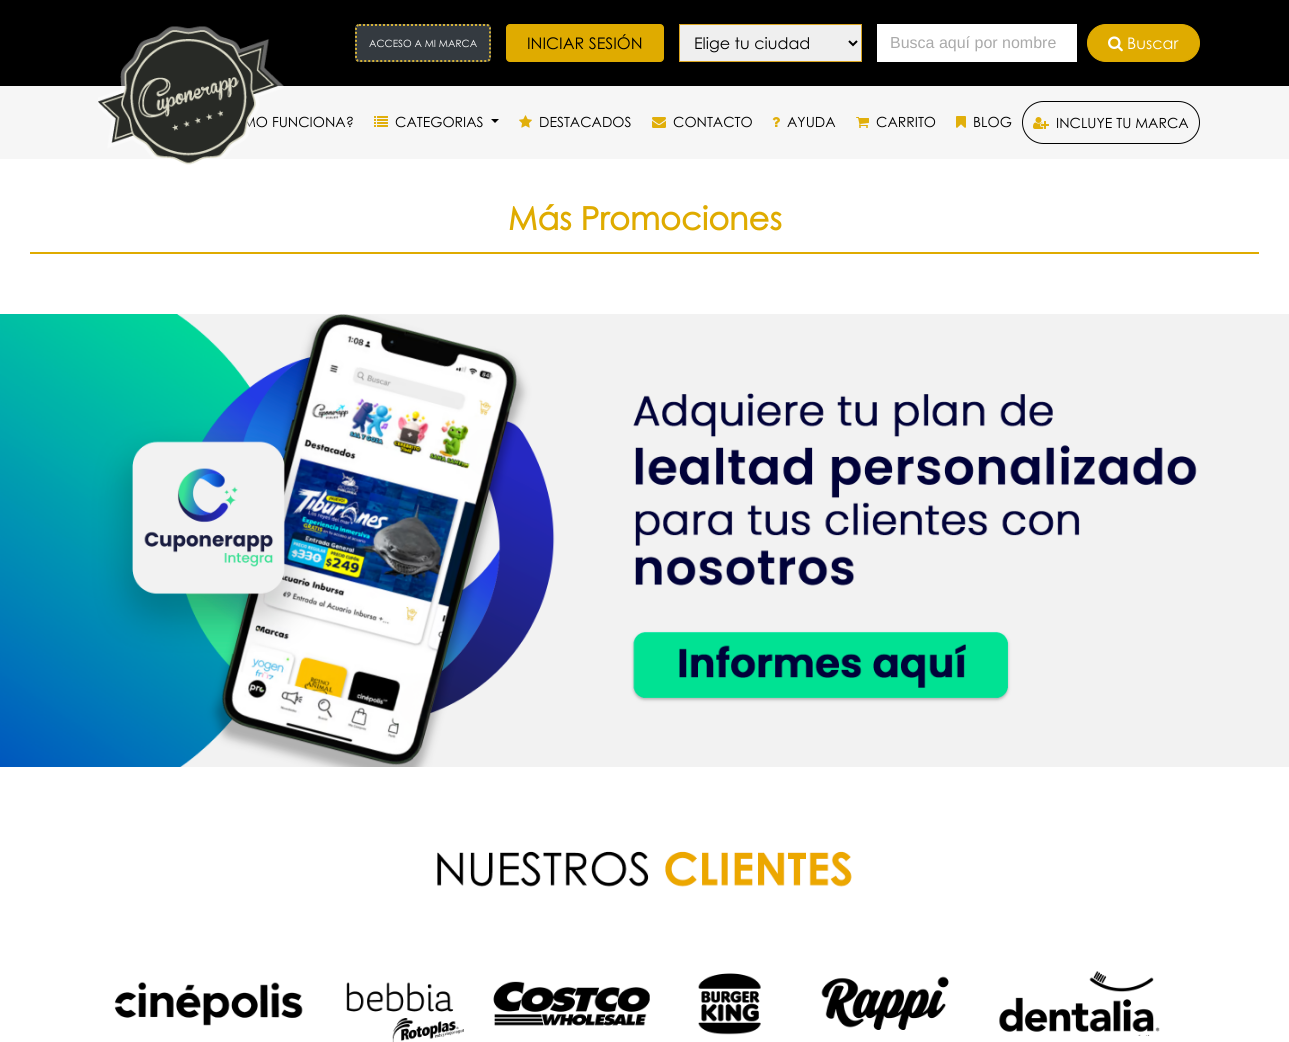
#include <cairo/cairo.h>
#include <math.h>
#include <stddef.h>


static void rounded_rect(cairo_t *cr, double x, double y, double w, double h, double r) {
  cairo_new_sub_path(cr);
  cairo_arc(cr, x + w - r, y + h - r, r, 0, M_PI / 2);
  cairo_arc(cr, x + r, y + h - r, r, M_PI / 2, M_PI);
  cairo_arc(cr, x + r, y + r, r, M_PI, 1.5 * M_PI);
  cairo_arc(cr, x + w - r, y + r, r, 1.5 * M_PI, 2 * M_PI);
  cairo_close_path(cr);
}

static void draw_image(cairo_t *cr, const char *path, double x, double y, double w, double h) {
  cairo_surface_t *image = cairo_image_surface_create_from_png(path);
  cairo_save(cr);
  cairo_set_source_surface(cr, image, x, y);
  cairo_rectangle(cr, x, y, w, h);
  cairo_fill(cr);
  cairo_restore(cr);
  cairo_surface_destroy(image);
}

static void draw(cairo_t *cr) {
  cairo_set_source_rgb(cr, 1, 1, 1);
  cairo_paint(cr);
  cairo_set_source_rgb(cr, 0, 0, 0);
  cairo_rectangle(cr, 0, 0, 1289, 86);
  cairo_fill(cr);
  cairo_set_source_rgb(cr, 52 / 255.0, 58 / 255.0, 64 / 255.0);
  rounded_rect(cr, 355, 24, 136, 38, 4);
  cairo_fill(cr);
  cairo_new_path(cr);
  cairo_move_to(cr, 359, 25);
  cairo_line_to(cr, 487, 25);
  cairo_curve_to(cr, 488.5, 25, 490, 26.5, 490, 28);
  cairo_line_to(cr, 490, 58);
  cairo_curve_to(cr, 490, 59.5, 488.5, 61, 487, 61);
  cairo_line_to(cr, 359, 61);
  cairo_curve_to(cr, 357.5, 61, 356, 59.5, 356, 58);
  cairo_line_to(cr, 356, 28);
  cairo_curve_to(cr, 356, 26.5, 357.5, 25, 359, 25);
  cairo_close_path(cr);
  cairo_set_source_rgb(cr, 212 / 255.0, 177 / 255.0, 54 / 255.0);
  cairo_set_dash(cr, (double[]){2, 2}, 2, 0);
  cairo_stroke(cr);
  cairo_set_source_rgb(cr, 223 / 255.0, 171 / 255.0, 0);
  rounded_rect(cr, 506.5, 24.5, 157, 37, 3.5);
  cairo_fill_preserve(cr);
  cairo_set_line_width(cr, 1);
  cairo_set_dash(cr, NULL, 0, 0);
  cairo_stroke(cr);
  cairo_set_source_rgb(cr, 239 / 255.0, 239 / 255.0, 239 / 255.0);
  cairo_rectangle(cr, 679.5, 24.5, 182, 37);
  cairo_fill_preserve(cr);
  cairo_set_source_rgb(cr, 218 / 255.0, 165 / 255.0, 32 / 255.0);
  cairo_stroke(cr);
  cairo_new_path(cr);
  cairo_move_to(cr, 849, 41);
  cairo_line_to(cr, 853, 45);
  cairo_line_to(cr, 857, 41);
  cairo_set_source_rgb(cr, 0, 0, 0);
  cairo_set_line_width(cr, 2);
  cairo_stroke(cr);
  cairo_set_source_rgb(cr, 1, 1, 1);
  cairo_rectangle(cr, 877, 24, 200, 38);
  cairo_fill(cr);
  cairo_set_source_rgb(cr, 223 / 255.0, 171 / 255.0, 0);
  rounded_rect(cr, 1087.5, 24.5, 112, 37, 18.5);
  cairo_fill_preserve(cr);
  cairo_set_line_width(cr, 1);
  cairo_stroke(cr);
  draw_image(cr, "images/2.png", 1108, 36, 15, 16);
  cairo_set_source_rgb(cr, 246 / 255.0, 246 / 255.0, 246 / 255.0);
  cairo_rectangle(cr, 0, 86, 1289, 73);
  cairo_fill(cr);
  draw_image(cr, "images/3.png", 374, 116, 14, 11);
  cairo_set_source_rgb(cr, 0, 0, 0);
  cairo_new_path(cr);
  cairo_move_to(cr, 491, 119);
  cairo_line_to(cr, 499, 119);
  cairo_line_to(cr, 495, 123);
  cairo_close_path(cr);
  cairo_fill(cr);
  draw_image(cr, "images/4.png", 519, 115, 13, 13);
  draw_image(cr, "images/5.png", 652, 117, 14, 11);
  draw_image(cr, "images/6.png", 772, 117, 8, 10);
  draw_image(cr, "images/7.png", 856, 117, 13, 11);
  draw_image(cr, "images/8.png", 956, 116, 10, 12);
  rounded_rect(cr, 1022.5, 101.5, 177, 42, 21);
  cairo_stroke(cr);
  draw_image(cr, "images/9.png", 1033, 117, 16, 12);
  cairo_set_source_rgb(cr, 223 / 255.0, 171 / 255.0, 0);
  cairo_rectangle(cr, 30, 252, 1229, 2);
  cairo_fill(cr);
  draw_image(cr, "images/10.png", 0, 314, 1289, 453);
  draw_image(cr, "images/11.png", 114, 851, 1046, 191);
  cairo_select_font_face(cr, "Century Gothic", CAIRO_FONT_SLANT_NORMAL, CAIRO_FONT_WEIGHT_NORMAL);
  cairo_set_font_size(cr, 10);
  cairo_set_source_rgb(cr, 1, 1, 1);
  cairo_move_to(cr, 369, 47);
  cairo_show_text(cr, "ACCESO A MI MARCA");
  cairo_set_font_size(cr, 16);
  cairo_set_source_rgb(cr, 0, 0, 0);
  cairo_move_to(cr, 527, 49);
  cairo_show_text(cr, "INICIAR SESIÓN");
  cairo_move_to(cr, 694, 49);
  cairo_show_text(cr, "Elige tu ciudad");
  cairo_select_font_face(cr, "Liberation Sans", CAIRO_FONT_SLANT_NORMAL, CAIRO_FONT_WEIGHT_NORMAL);
  cairo_set_source_rgb(cr, 170 / 255.0, 170 / 255.0, 170 / 255.0);
  cairo_move_to(cr, 890, 48);
  cairo_show_text(cr, "Busca aquí por nombre");
  cairo_select_font_face(cr, "Century Gothic", CAIRO_FONT_SLANT_NORMAL, CAIRO_FONT_WEIGHT_NORMAL);
  cairo_set_source_rgb(cr, 1, 1, 1);
  cairo_move_to(cr, 1127, 49);
  cairo_show_text(cr, "Buscar");
  cairo_set_font_size(cr, 14);
  cairo_set_source_rgb(cr, 0, 0, 0);
  cairo_move_to(cr, 243, 127);
  cairo_show_text(cr, "MO FUNCIONA?");
  draw_image(cr, "images/1.png", 98, 26, 186, 139);
  cairo_move_to(cr, 395, 127);
  cairo_show_text(cr, "CATEGORIAS");
  cairo_move_to(cr, 539, 127);
  cairo_show_text(cr, "DESTACADOS");
  cairo_move_to(cr, 673, 127);
  cairo_show_text(cr, "CONTACTO");
  cairo_move_to(cr, 787, 127);
  cairo_show_text(cr, "AYUDA");
  cairo_move_to(cr, 876, 127);
  cairo_show_text(cr, "CARRITO");
  cairo_move_to(cr, 973, 127);
  cairo_show_text(cr, "BLOG");
  cairo_move_to(cr, 1056, 128);
  cairo_show_text(cr, "INCLUYE TU MARCA");
  cairo_select_font_face(cr, "Century Gothic", CAIRO_FONT_SLANT_NORMAL, CAIRO_FONT_WEIGHT_BOLD);
  cairo_set_font_size(cr, 32);
  cairo_set_source_rgb(cr, 223 / 255.0, 171 / 255.0, 0);
  cairo_move_to(cr, 508, 230);
  cairo_show_text(cr, "Más Promociones");
}

int main(void) {
  cairo_surface_t *surface = cairo_image_surface_create(CAIRO_FORMAT_RGB24, 1289, 1042);
  cairo_t *cr = cairo_create(surface);
  cairo_font_options_t *options = cairo_font_options_create();
  cairo_font_options_set_hint_metrics(options, CAIRO_HINT_METRICS_OFF);
  cairo_font_options_set_hint_style(options, CAIRO_HINT_STYLE_NONE);
  cairo_set_font_options(cr, options);
  cairo_set_miter_limit(cr, 4);
  draw(cr);
  cairo_surface_write_to_png(surface, "out.png");
  cairo_font_options_destroy(options);
  cairo_destroy(cr);
  cairo_surface_destroy(surface);
  return 0;
}
